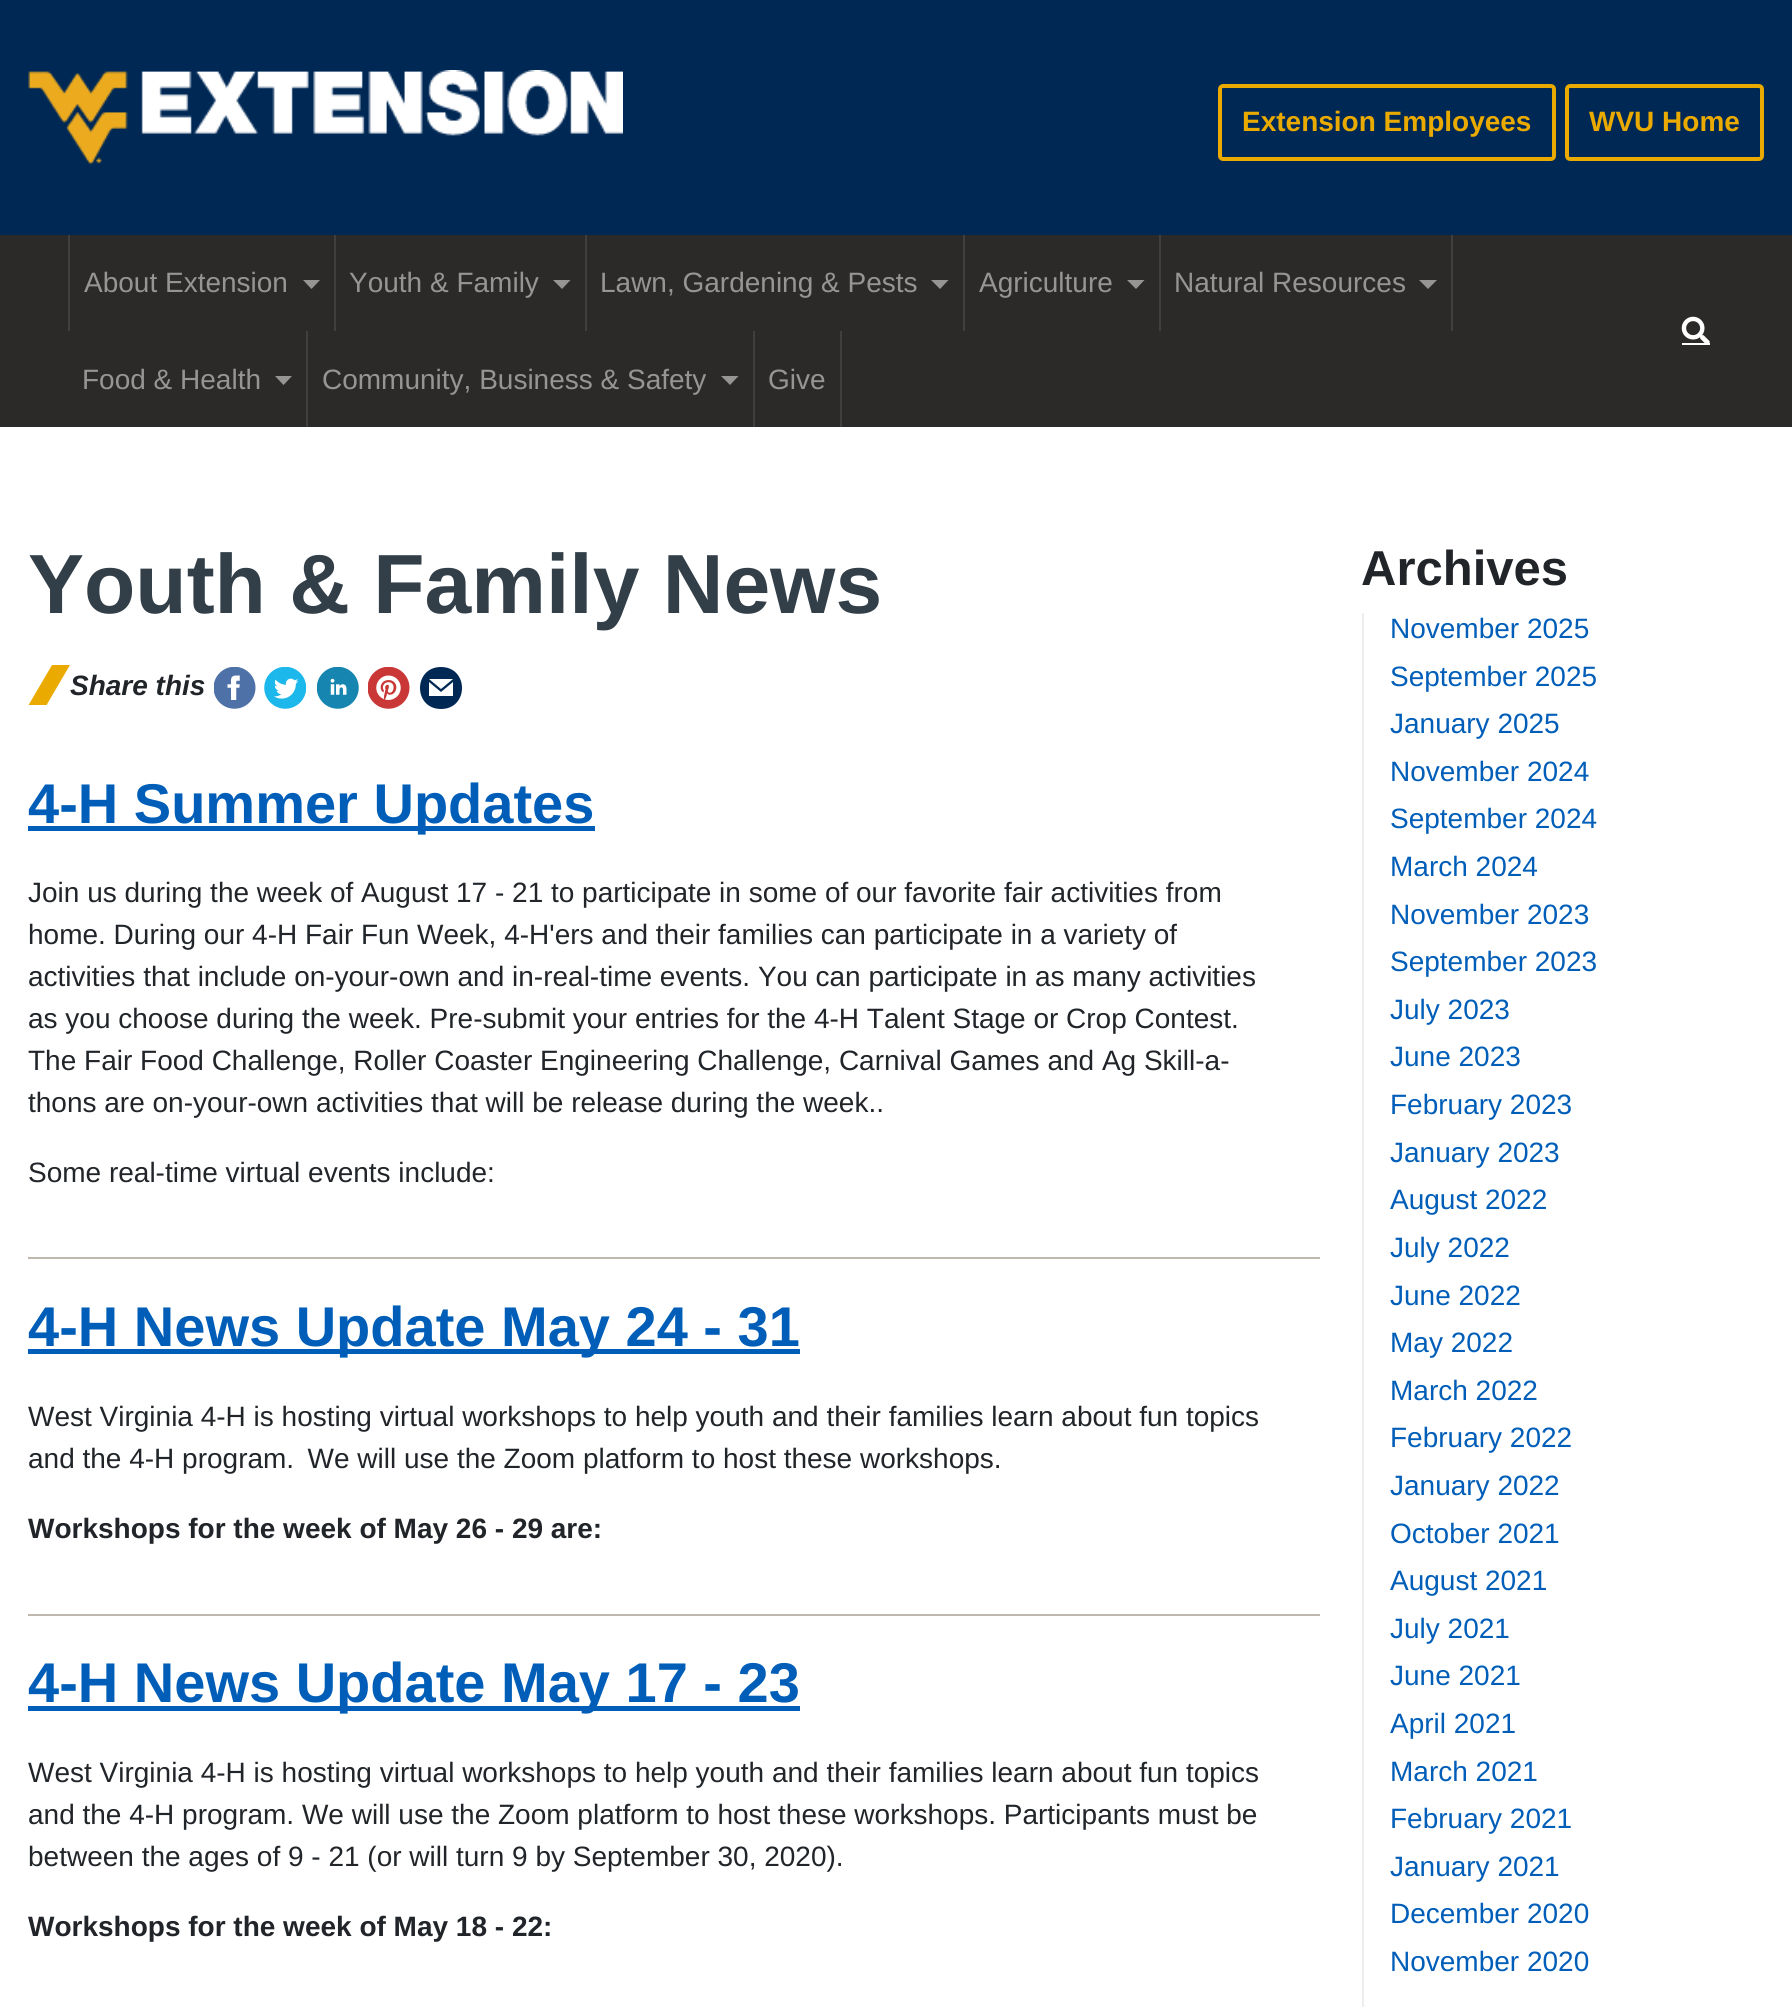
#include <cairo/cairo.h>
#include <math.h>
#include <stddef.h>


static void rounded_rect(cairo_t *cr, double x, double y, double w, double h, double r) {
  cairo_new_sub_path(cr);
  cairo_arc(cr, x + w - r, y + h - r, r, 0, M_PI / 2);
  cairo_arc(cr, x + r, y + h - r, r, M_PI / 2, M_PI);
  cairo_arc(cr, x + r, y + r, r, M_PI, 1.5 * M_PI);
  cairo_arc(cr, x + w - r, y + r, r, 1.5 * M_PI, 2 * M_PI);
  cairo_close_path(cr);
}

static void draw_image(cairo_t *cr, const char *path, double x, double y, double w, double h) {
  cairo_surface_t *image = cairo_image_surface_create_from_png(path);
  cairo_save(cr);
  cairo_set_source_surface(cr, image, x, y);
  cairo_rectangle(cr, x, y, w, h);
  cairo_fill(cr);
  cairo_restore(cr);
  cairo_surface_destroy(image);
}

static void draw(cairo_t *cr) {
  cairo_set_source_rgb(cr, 1, 1, 1);
  cairo_paint(cr);
  cairo_set_source_rgb(cr, 0, 40 / 255.0, 85 / 255.0);
  cairo_rectangle(cr, 0, 0, 1792, 235);
  cairo_fill(cr);
  draw_image(cr, "images/1.png", 28, 70, 595, 95);
  rounded_rect(cr, 1220, 86, 334, 73, 3);
  cairo_set_source_rgb(cr, 234 / 255.0, 170 / 255.0, 0);
  cairo_set_line_width(cr, 4);
  cairo_stroke(cr);
  rounded_rect(cr, 1567, 86, 195, 73, 3);
  cairo_stroke(cr);
  cairo_set_source_rgb(cr, 44 / 255.0, 42 / 255.0, 41 / 255.0);
  cairo_rectangle(cr, 0, 235, 1792, 192);
  cairo_fill(cr);
  cairo_set_source_rgb(cr, 65 / 255.0, 63 / 255.0, 62 / 255.0);
  cairo_rectangle(cr, 334, 235, 2, 96);
  cairo_fill(cr);
  cairo_rectangle(cr, 68, 235, 2, 96);
  cairo_fill(cr);
  cairo_set_source_rgb(cr, 150 / 255.0, 149 / 255.0, 148 / 255.0);
  cairo_new_path(cr);
  cairo_move_to(cr, 303, 280);
  cairo_line_to(cr, 320, 280);
  cairo_line_to(cr, 311.5, 289);
  cairo_close_path(cr);
  cairo_fill(cr);
  cairo_set_source_rgb(cr, 65 / 255.0, 63 / 255.0, 62 / 255.0);
  cairo_rectangle(cr, 585, 235, 2, 96);
  cairo_fill(cr);
  cairo_set_source_rgb(cr, 150 / 255.0, 149 / 255.0, 148 / 255.0);
  cairo_new_path(cr);
  cairo_move_to(cr, 553, 280);
  cairo_line_to(cr, 570.5, 280);
  cairo_line_to(cr, 562, 289);
  cairo_close_path(cr);
  cairo_fill(cr);
  cairo_set_source_rgb(cr, 65 / 255.0, 63 / 255.0, 62 / 255.0);
  cairo_rectangle(cr, 963, 235, 2, 96);
  cairo_fill(cr);
  cairo_set_source_rgb(cr, 150 / 255.0, 149 / 255.0, 148 / 255.0);
  cairo_new_path(cr);
  cairo_move_to(cr, 931, 280);
  cairo_line_to(cr, 948.5, 280);
  cairo_line_to(cr, 940, 289);
  cairo_close_path(cr);
  cairo_fill(cr);
  cairo_set_source_rgb(cr, 65 / 255.0, 63 / 255.0, 62 / 255.0);
  cairo_rectangle(cr, 1159, 235, 2, 96);
  cairo_fill(cr);
  cairo_set_source_rgb(cr, 150 / 255.0, 149 / 255.0, 148 / 255.0);
  cairo_new_path(cr);
  cairo_move_to(cr, 1127, 280);
  cairo_line_to(cr, 1144.5, 280);
  cairo_line_to(cr, 1136, 289);
  cairo_close_path(cr);
  cairo_fill(cr);
  cairo_set_source_rgb(cr, 65 / 255.0, 63 / 255.0, 62 / 255.0);
  cairo_rectangle(cr, 1451, 235, 2, 96);
  cairo_fill(cr);
  cairo_set_source_rgb(cr, 150 / 255.0, 149 / 255.0, 148 / 255.0);
  cairo_new_path(cr);
  cairo_move_to(cr, 1419, 280);
  cairo_line_to(cr, 1437, 280);
  cairo_line_to(cr, 1428, 289);
  cairo_close_path(cr);
  cairo_fill(cr);
  cairo_set_source_rgb(cr, 65 / 255.0, 63 / 255.0, 62 / 255.0);
  cairo_rectangle(cr, 306, 331, 2, 96);
  cairo_fill(cr);
  cairo_set_source_rgb(cr, 150 / 255.0, 149 / 255.0, 148 / 255.0);
  cairo_new_path(cr);
  cairo_move_to(cr, 275, 376);
  cairo_line_to(cr, 292, 376);
  cairo_line_to(cr, 283.5, 385);
  cairo_close_path(cr);
  cairo_fill(cr);
  cairo_set_source_rgb(cr, 65 / 255.0, 63 / 255.0, 62 / 255.0);
  cairo_rectangle(cr, 753, 331, 2, 96);
  cairo_fill(cr);
  cairo_set_source_rgb(cr, 150 / 255.0, 149 / 255.0, 148 / 255.0);
  cairo_new_path(cr);
  cairo_move_to(cr, 721, 376);
  cairo_line_to(cr, 738.5, 376);
  cairo_line_to(cr, 730, 385);
  cairo_close_path(cr);
  cairo_fill(cr);
  cairo_set_source_rgb(cr, 65 / 255.0, 63 / 255.0, 62 / 255.0);
  cairo_rectangle(cr, 840, 331, 2, 96);
  cairo_fill(cr);
  draw_image(cr, "images/2.png", 1681, 316, 29, 27);
  cairo_set_source_rgb(cr, 1, 1, 1);
  cairo_rectangle(cr, 1682, 343, 28, 2);
  cairo_fill(cr);
  cairo_save(cr);
  cairo_rectangle(cr, 28, 665, 42, 40);
  cairo_clip(cr);
  cairo_set_source_rgb(cr, 234 / 255.0, 170 / 255.0, 0);
  cairo_new_path(cr);
  cairo_move_to(cr, 28, 706);
  cairo_line_to(cr, 52, 665);
  cairo_line_to(cr, 70, 665);
  cairo_line_to(cr, 46, 706);
  cairo_close_path(cr);
  cairo_fill(cr);
  cairo_restore(cr);
  draw_image(cr, "images/3.png", 214, 667, 42, 42);
  draw_image(cr, "images/4.png", 264, 667, 42, 42);
  draw_image(cr, "images/5.png", 317, 667, 42, 42);
  draw_image(cr, "images/6.png", 368, 667, 42, 42);
  cairo_set_source_rgb(cr, 0, 40 / 255.0, 85 / 255.0);
  cairo_new_path(cr);
  cairo_move_to(cr, 441, 667);
  cairo_curve_to(cr, 413, 667, 413, 709, 441, 709);
  cairo_curve_to(cr, 469, 709, 469, 667, 441, 667);
  cairo_close_path(cr);
  cairo_move_to(cr, 453, 679);
  cairo_line_to(cr, 441, 689);
  cairo_line_to(cr, 429, 679);
  cairo_close_path(cr);
  cairo_move_to(cr, 453, 696);
  cairo_line_to(cr, 429, 696);
  cairo_line_to(cr, 429, 682);
  cairo_line_to(cr, 441, 692);
  cairo_line_to(cr, 453, 682);
  cairo_close_path(cr);
  cairo_fill(cr);
  cairo_set_source_rgb(cr, 191 / 255.0, 184 / 255.0, 175 / 255.0);
  cairo_rectangle(cr, 28, 1257, 1292, 2);
  cairo_fill(cr);
  cairo_set_source_rgb(cr, 0, 94 / 255.0, 184 / 255.0);
  cairo_rectangle(cr, 28, 826, 567, 5);
  cairo_fill(cr);
  cairo_set_source_rgb(cr, 191 / 255.0, 184 / 255.0, 175 / 255.0);
  cairo_rectangle(cr, 28, 1614, 1292, 2);
  cairo_fill(cr);
  cairo_set_source_rgb(cr, 0, 94 / 255.0, 184 / 255.0);
  cairo_rectangle(cr, 28, 1349, 772, 5);
  cairo_fill(cr);
  cairo_rectangle(cr, 28, 1706, 772, 5);
  cairo_fill(cr);
  cairo_set_source_rgb(cr, 238 / 255.0, 238 / 255.0, 238 / 255.0);
  cairo_rectangle(cr, 1362, 613, 2, 1394);
  cairo_fill(cr);
  cairo_select_font_face(cr, "Liberation Sans", CAIRO_FONT_SLANT_NORMAL, CAIRO_FONT_WEIGHT_BOLD);
  cairo_set_font_size(cr, 28);
  cairo_set_source_rgb(cr, 234 / 255.0, 170 / 255.0, 0);
  cairo_move_to(cr, 1242, 131);
  cairo_show_text(cr, "Extension Employees");
  cairo_move_to(cr, 1589, 131);
  cairo_show_text(cr, "WVU Home");
  cairo_select_font_face(cr, "Liberation Sans", CAIRO_FONT_SLANT_NORMAL, CAIRO_FONT_WEIGHT_NORMAL);
  cairo_set_source_rgb(cr, 150 / 255.0, 149 / 255.0, 148 / 255.0);
  cairo_move_to(cr, 84, 292);
  cairo_show_text(cr, "About Extension");
  cairo_move_to(cr, 349, 292);
  cairo_show_text(cr, "Youth & Family");
  cairo_move_to(cr, 600, 292);
  cairo_show_text(cr, "Lawn, Gardening & Pests");
  cairo_move_to(cr, 979, 292);
  cairo_show_text(cr, "Agriculture");
  cairo_move_to(cr, 1174, 292);
  cairo_show_text(cr, "Natural Resources");
  cairo_move_to(cr, 82, 389);
  cairo_show_text(cr, "Food & Health");
  cairo_move_to(cr, 322, 389);
  cairo_show_text(cr, "Community, Business & Safety");
  cairo_move_to(cr, 768, 389);
  cairo_show_text(cr, "Give");
  cairo_select_font_face(cr, "Liberation Sans", CAIRO_FONT_SLANT_NORMAL, CAIRO_FONT_WEIGHT_BOLD);
  cairo_set_font_size(cr, 84);
  cairo_set_source_rgb(cr, 51 / 255.0, 63 / 255.0, 72 / 255.0);
  cairo_move_to(cr, 28, 613);
  cairo_show_text(cr, "Youth & Family News");
  cairo_select_font_face(cr, "Liberation Sans", CAIRO_FONT_SLANT_ITALIC, CAIRO_FONT_WEIGHT_BOLD);
  cairo_set_font_size(cr, 28);
  cairo_set_source_rgb(cr, 33 / 255.0, 37 / 255.0, 41 / 255.0);
  cairo_move_to(cr, 70, 695);
  cairo_show_text(cr, "Share this");
  cairo_select_font_face(cr, "Liberation Sans", CAIRO_FONT_SLANT_NORMAL, CAIRO_FONT_WEIGHT_BOLD);
  cairo_set_font_size(cr, 56);
  cairo_set_source_rgb(cr, 0, 94 / 255.0, 184 / 255.0);
  cairo_move_to(cr, 28, 823);
  cairo_show_text(cr, "4-H Summer Updates");
  cairo_select_font_face(cr, "Liberation Sans", CAIRO_FONT_SLANT_NORMAL, CAIRO_FONT_WEIGHT_NORMAL);
  cairo_set_font_size(cr, 28);
  cairo_set_source_rgb(cr, 33 / 255.0, 37 / 255.0, 41 / 255.0);
  cairo_move_to(cr, 28, 902);
  cairo_show_text(cr, "Join us during the week of August 17 - 21 to participate in some of our favorite fair activities from");
  cairo_move_to(cr, 28, 944);
  cairo_show_text(cr, "home. During our 4-H Fair Fun Week, 4-H'ers and their families can participate in a variety of");
  cairo_move_to(cr, 28, 986);
  cairo_show_text(cr, "activities that include on-your-own and in-real-time events. You can participate in as many activities");
  cairo_move_to(cr, 28, 1028);
  cairo_show_text(cr, "as you choose during the week. Pre-submit your entries for the 4-H Talent Stage or Crop Contest.");
  cairo_move_to(cr, 28, 1070);
  cairo_show_text(cr, "The Fair Food Challenge, Roller Coaster Engineering Challenge, Carnival Games and Ag Skill-a-");
  cairo_move_to(cr, 28, 1112);
  cairo_show_text(cr, "thons are on-your-own activities that will be release during the week..");
  cairo_move_to(cr, 28, 1182);
  cairo_show_text(cr, "Some real-time virtual events include:");
  cairo_select_font_face(cr, "Liberation Sans", CAIRO_FONT_SLANT_NORMAL, CAIRO_FONT_WEIGHT_BOLD);
  cairo_set_font_size(cr, 56);
  cairo_set_source_rgb(cr, 0, 94 / 255.0, 184 / 255.0);
  cairo_move_to(cr, 28, 1346);
  cairo_show_text(cr, "4-H News Update May 24 - 31");
  cairo_select_font_face(cr, "Liberation Sans", CAIRO_FONT_SLANT_NORMAL, CAIRO_FONT_WEIGHT_NORMAL);
  cairo_set_font_size(cr, 28);
  cairo_set_source_rgb(cr, 33 / 255.0, 37 / 255.0, 41 / 255.0);
  cairo_move_to(cr, 28, 1426);
  cairo_show_text(cr, "West Virginia 4-H is hosting virtual workshops to help youth and their families learn about fun topics");
  cairo_move_to(cr, 28, 1468);
  cairo_show_text(cr, "and the 4-H program.  We will use the Zoom platform to host these workshops.");
  cairo_select_font_face(cr, "Liberation Sans", CAIRO_FONT_SLANT_NORMAL, CAIRO_FONT_WEIGHT_BOLD);
  cairo_move_to(cr, 28, 1538);
  cairo_show_text(cr, "Workshops for the week of May 26 - 29 are:");
  cairo_set_font_size(cr, 56);
  cairo_set_source_rgb(cr, 0, 94 / 255.0, 184 / 255.0);
  cairo_move_to(cr, 28, 1702);
  cairo_show_text(cr, "4-H News Update May 17 - 23");
  cairo_select_font_face(cr, "Liberation Sans", CAIRO_FONT_SLANT_NORMAL, CAIRO_FONT_WEIGHT_NORMAL);
  cairo_set_font_size(cr, 28);
  cairo_set_source_rgb(cr, 33 / 255.0, 37 / 255.0, 41 / 255.0);
  cairo_move_to(cr, 28, 1782);
  cairo_show_text(cr, "West Virginia 4-H is hosting virtual workshops to help youth and their families learn about fun topics");
  cairo_move_to(cr, 28, 1824);
  cairo_show_text(cr, "and the 4-H program. We will use the Zoom platform to host these workshops. Participants must be");
  cairo_move_to(cr, 28, 1866);
  cairo_show_text(cr, "between the ages of 9 - 21 (or will turn 9 by September 30, 2020).");
  cairo_select_font_face(cr, "Liberation Sans", CAIRO_FONT_SLANT_NORMAL, CAIRO_FONT_WEIGHT_BOLD);
  cairo_move_to(cr, 28, 1936);
  cairo_show_text(cr, "Workshops for the week of May 18 - 22:");
  cairo_set_font_size(cr, 49);
  cairo_move_to(cr, 1361, 585);
  cairo_show_text(cr, "Archives");
  cairo_select_font_face(cr, "Liberation Sans", CAIRO_FONT_SLANT_NORMAL, CAIRO_FONT_WEIGHT_NORMAL);
  cairo_set_font_size(cr, 28);
  cairo_set_source_rgb(cr, 0, 94 / 255.0, 184 / 255.0);
  cairo_move_to(cr, 1390, 638);
  cairo_show_text(cr, "November 2025");
  cairo_move_to(cr, 1390, 686);
  cairo_show_text(cr, "September 2025");
  cairo_move_to(cr, 1390, 733);
  cairo_show_text(cr, "January 2025");
  cairo_move_to(cr, 1390, 781);
  cairo_show_text(cr, "November 2024");
  cairo_move_to(cr, 1390, 828);
  cairo_show_text(cr, "September 2024");
  cairo_move_to(cr, 1390, 876);
  cairo_show_text(cr, "March 2024");
  cairo_move_to(cr, 1390, 924);
  cairo_show_text(cr, "November 2023");
  cairo_move_to(cr, 1390, 971);
  cairo_show_text(cr, "September 2023");
  cairo_move_to(cr, 1390, 1019);
  cairo_show_text(cr, "July 2023");
  cairo_move_to(cr, 1390, 1066);
  cairo_show_text(cr, "June 2023");
  cairo_move_to(cr, 1390, 1114);
  cairo_show_text(cr, "February 2023");
  cairo_move_to(cr, 1390, 1162);
  cairo_show_text(cr, "January 2023");
  cairo_move_to(cr, 1390, 1209);
  cairo_show_text(cr, "August 2022");
  cairo_move_to(cr, 1390, 1257);
  cairo_show_text(cr, "July 2022");
  cairo_move_to(cr, 1390, 1305);
  cairo_show_text(cr, "June 2022");
  cairo_move_to(cr, 1390, 1352);
  cairo_show_text(cr, "May 2022");
  cairo_move_to(cr, 1390, 1400);
  cairo_show_text(cr, "March 2022");
  cairo_move_to(cr, 1390, 1447);
  cairo_show_text(cr, "February 2022");
  cairo_move_to(cr, 1390, 1495);
  cairo_show_text(cr, "January 2022");
  cairo_move_to(cr, 1390, 1543);
  cairo_show_text(cr, "October 2021");
  cairo_move_to(cr, 1390, 1590);
  cairo_show_text(cr, "August 2021");
  cairo_move_to(cr, 1390, 1638);
  cairo_show_text(cr, "July 2021");
  cairo_move_to(cr, 1390, 1685);
  cairo_show_text(cr, "June 2021");
  cairo_move_to(cr, 1390, 1733);
  cairo_show_text(cr, "April 2021");
  cairo_move_to(cr, 1390, 1781);
  cairo_show_text(cr, "March 2021");
  cairo_move_to(cr, 1390, 1828);
  cairo_show_text(cr, "February 2021");
  cairo_move_to(cr, 1390, 1876);
  cairo_show_text(cr, "January 2021");
  cairo_move_to(cr, 1390, 1923);
  cairo_show_text(cr, "December 2020");
  cairo_move_to(cr, 1390, 1971);
  cairo_show_text(cr, "November 2020");
}

int main(void) {
  cairo_surface_t *surface = cairo_image_surface_create(CAIRO_FORMAT_RGB24, 1792, 2007);
  cairo_t *cr = cairo_create(surface);
  cairo_font_options_t *options = cairo_font_options_create();
  cairo_font_options_set_hint_metrics(options, CAIRO_HINT_METRICS_OFF);
  cairo_font_options_set_hint_style(options, CAIRO_HINT_STYLE_NONE);
  cairo_set_font_options(cr, options);
  cairo_set_miter_limit(cr, 4);
  draw(cr);
  cairo_surface_write_to_png(surface, "out.png");
  cairo_font_options_destroy(options);
  cairo_destroy(cr);
  cairo_surface_destroy(surface);
  return 0;
}
